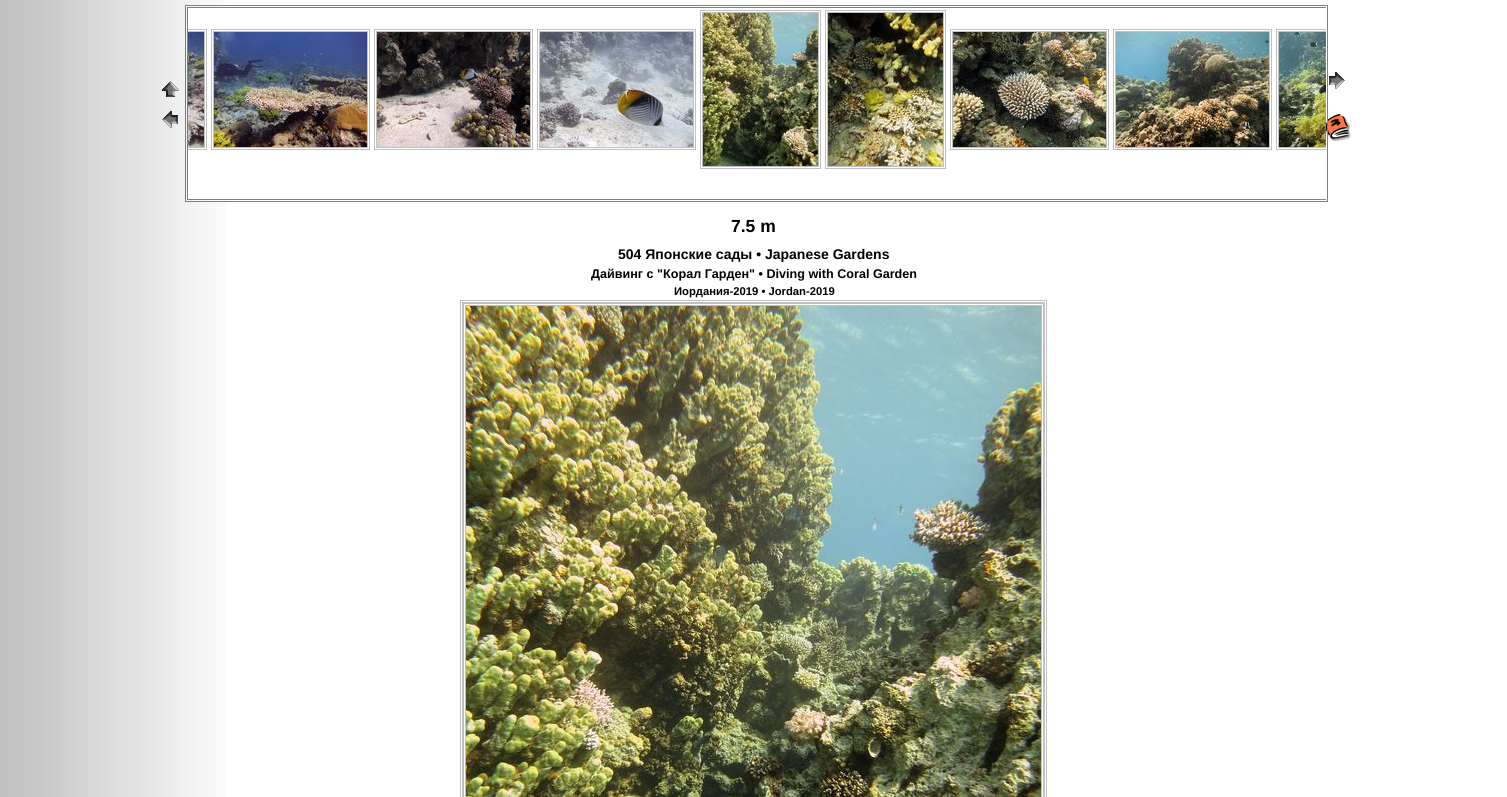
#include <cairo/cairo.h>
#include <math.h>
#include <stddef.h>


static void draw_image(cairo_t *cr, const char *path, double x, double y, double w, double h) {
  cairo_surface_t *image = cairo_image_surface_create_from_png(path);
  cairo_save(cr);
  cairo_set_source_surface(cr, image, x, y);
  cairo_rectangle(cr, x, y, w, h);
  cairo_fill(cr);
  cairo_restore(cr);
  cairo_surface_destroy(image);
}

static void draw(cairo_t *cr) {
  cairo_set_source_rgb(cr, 1, 1, 1);
  cairo_paint(cr);
  draw_image(cr, "images/1.png", 0, 0, 225, 797);
  draw_image(cr, "images/2.png", 162, 81, 17, 16);
  draw_image(cr, "images/3.png", 162, 111, 16, 17);
  draw_image(cr, "images/6.png", 1326, 113, 25, 29);
  cairo_rectangle(cr, 185.5, 5.5, 1142, 196);
  cairo_set_source_rgb(cr, 128 / 255.0, 128 / 255.0, 128 / 255.0);
  cairo_set_line_width(cr, 1);
  cairo_stroke(cr);
  cairo_rectangle(cr, 187.5, 7.5, 1138, 192);
  cairo_stroke(cr);
  draw_image(cr, "images/4.png", 188, 8, 1138, 191);
  draw_image(cr, "images/5.png", 1329, 72, 16, 17);
  cairo_rectangle(cr, 460.5, 300.5, 586, 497);
  cairo_set_source_rgb(cr, 192 / 255.0, 192 / 255.0, 192 / 255.0);
  cairo_stroke(cr);
  cairo_rectangle(cr, 462.5, 302.5, 582, 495);
  cairo_stroke(cr);
  cairo_rectangle(cr, 463.5, 303.5, 580, 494);
  cairo_stroke(cr);
  cairo_rectangle(cr, 465.5, 305.5, 576, 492);
  cairo_stroke(cr);
  draw_image(cr, "images/7.png", 466, 306, 575, 491);
  cairo_select_font_face(cr, "Liberation Sans", CAIRO_FONT_SLANT_NORMAL, CAIRO_FONT_WEIGHT_BOLD);
  cairo_set_font_size(cr, 17.5);
  cairo_set_source_rgb(cr, 0, 0, 0);
  cairo_move_to(cr, 731, 232);
  cairo_show_text(cr, "7.5 m");
  cairo_set_font_size(cr, 14);
  cairo_move_to(cr, 618, 259);
  cairo_show_text(cr, "504 Японские сады • Japanese Gardens");
  cairo_set_font_size(cr, 12.6);
  cairo_move_to(cr, 591, 278);
  cairo_show_text(cr, "Дайвинг с \"Корал Гарден\" • Diving with Coral Garden");
  cairo_set_font_size(cr, 11.25);
  cairo_move_to(cr, 674, 295);
  cairo_show_text(cr, "Иордания-2019 • Jordan-2019");
}

int main(void) {
  cairo_surface_t *surface = cairo_image_surface_create(CAIRO_FORMAT_RGB24, 1507, 797);
  cairo_t *cr = cairo_create(surface);
  cairo_font_options_t *options = cairo_font_options_create();
  cairo_font_options_set_hint_metrics(options, CAIRO_HINT_METRICS_OFF);
  cairo_font_options_set_hint_style(options, CAIRO_HINT_STYLE_NONE);
  cairo_set_font_options(cr, options);
  cairo_set_miter_limit(cr, 4);
  draw(cr);
  cairo_surface_write_to_png(surface, "out.png");
  cairo_font_options_destroy(options);
  cairo_destroy(cr);
  cairo_surface_destroy(surface);
  return 0;
}
